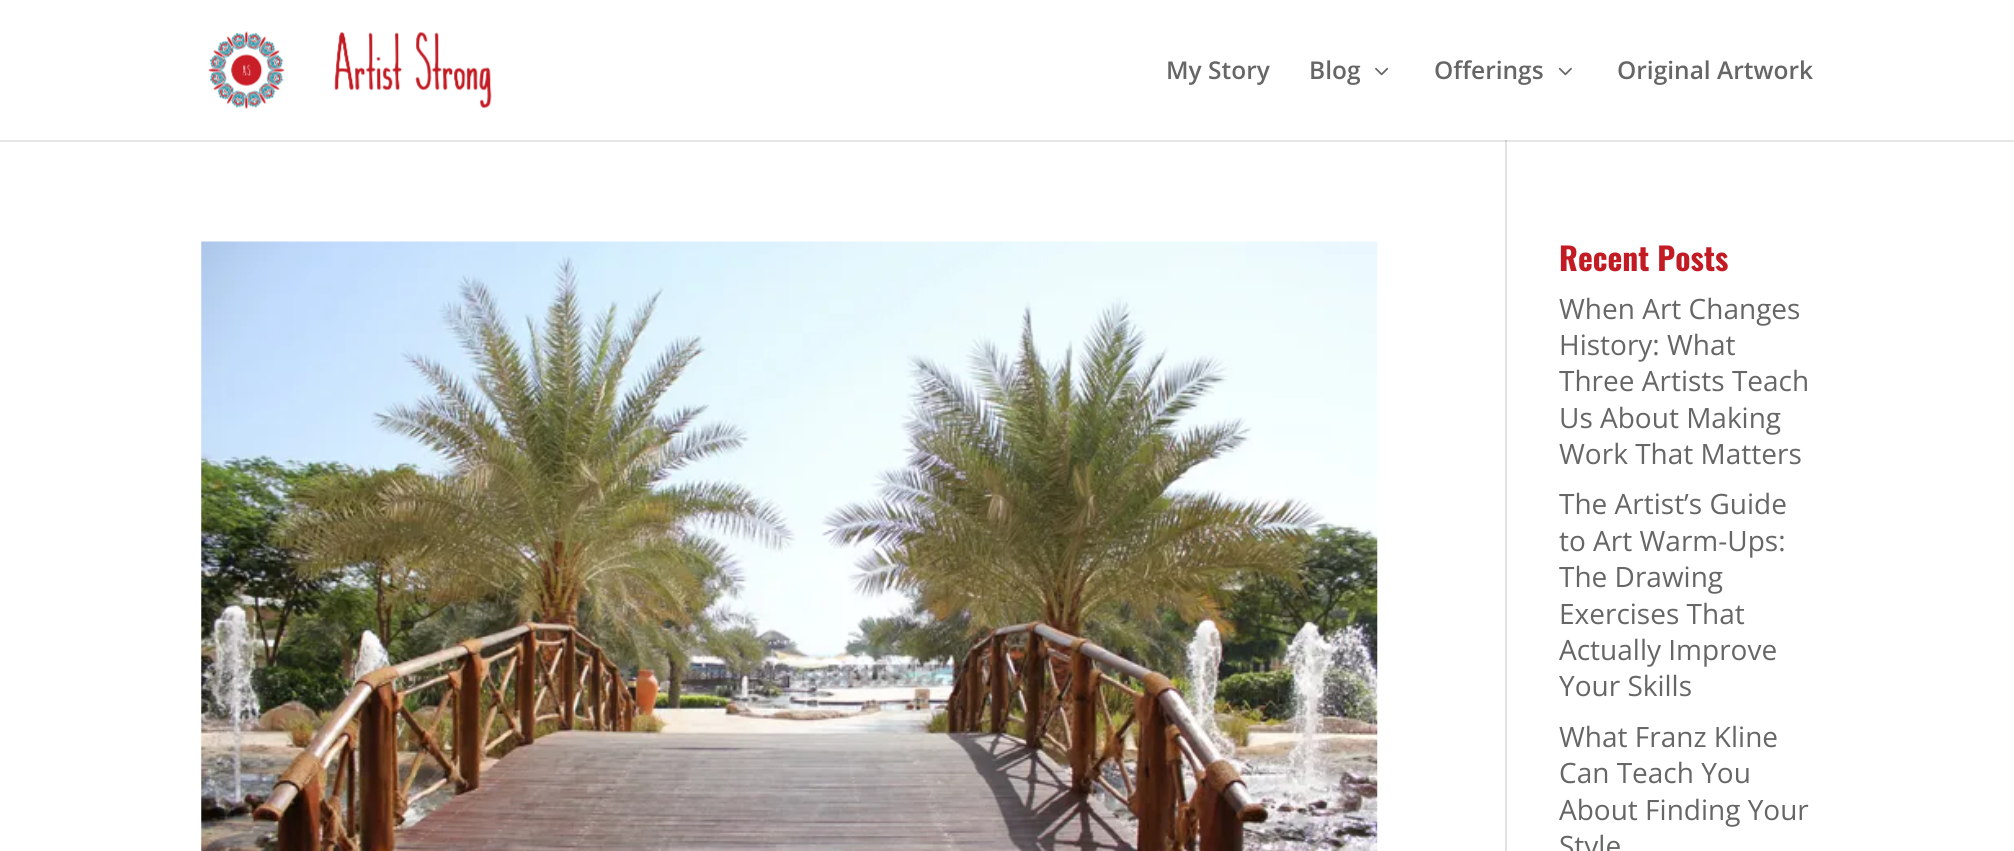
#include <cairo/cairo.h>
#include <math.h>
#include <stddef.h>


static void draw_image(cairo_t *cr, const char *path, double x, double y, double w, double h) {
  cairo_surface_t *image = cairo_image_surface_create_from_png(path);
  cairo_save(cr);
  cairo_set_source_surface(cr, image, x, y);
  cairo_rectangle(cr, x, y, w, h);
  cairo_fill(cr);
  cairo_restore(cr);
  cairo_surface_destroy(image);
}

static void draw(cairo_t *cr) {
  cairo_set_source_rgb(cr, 1, 1, 1);
  cairo_paint(cr);
  cairo_set_source_rgb(cr, 230 / 255.0, 230 / 255.0, 230 / 255.0);
  cairo_rectangle(cr, 0, 140, 2014, 2);
  cairo_fill(cr);
  draw_image(cr, "images/1.png", 208, 31, 284, 78);
  draw_image(cr, "images/2.png", 1375, 67, 14, 9);
  draw_image(cr, "images/3.png", 1558, 67, 14, 9);
  cairo_set_source_rgb(cr, 226 / 255.0, 226 / 255.0, 226 / 255.0);
  cairo_rectangle(cr, 1505, 140, 2, 711);
  cairo_fill(cr);
  cairo_set_source_rgb(cr, 203 / 255.0, 203 / 255.0, 203 / 255.0);
  cairo_rectangle(cr, 1505, 140, 2, 2);
  cairo_fill(cr);
  draw_image(cr, "images/4.png", 201, 241, 1177, 610);
  cairo_select_font_face(cr, "Open Sans SemiBold", CAIRO_FONT_SLANT_NORMAL, CAIRO_FONT_WEIGHT_NORMAL);
  cairo_set_font_size(cr, 24.5);
  cairo_set_source_rgb(cr, 102 / 255.0, 102 / 255.0, 102 / 255.0);
  cairo_move_to(cr, 1166, 79);
  cairo_show_text(cr, "My Story");
  cairo_move_to(cr, 1309, 79);
  cairo_show_text(cr, "Blog");
  cairo_move_to(cr, 1434, 79);
  cairo_show_text(cr, "Offerings");
  cairo_move_to(cr, 1617, 79);
  cairo_show_text(cr, "Original Artwork");
  cairo_select_font_face(cr, "Oswald", CAIRO_FONT_SLANT_NORMAL, CAIRO_FONT_WEIGHT_BOLD);
  cairo_set_font_size(cr, 31.5);
  cairo_set_source_rgb(cr, 194 / 255.0, 27 / 255.0, 35 / 255.0);
  cairo_move_to(cr, 1559, 271);
  cairo_show_text(cr, "Recent Posts");
  cairo_select_font_face(cr, "Open Sans", CAIRO_FONT_SLANT_NORMAL, CAIRO_FONT_WEIGHT_NORMAL);
  cairo_set_font_size(cr, 28);
  cairo_set_source_rgb(cr, 102 / 255.0, 102 / 255.0, 102 / 255.0);
  cairo_move_to(cr, 1559, 319);
  cairo_show_text(cr, "When Art Changes");
  cairo_move_to(cr, 1559, 355);
  cairo_show_text(cr, "History: What");
  cairo_move_to(cr, 1559, 391);
  cairo_show_text(cr, "Three Artists Teach");
  cairo_move_to(cr, 1559, 428);
  cairo_show_text(cr, "Us About Making");
  cairo_move_to(cr, 1559, 464);
  cairo_show_text(cr, "Work That Matters");
  cairo_move_to(cr, 1559, 514);
  cairo_show_text(cr, "The Artist’s Guide");
  cairo_move_to(cr, 1559, 551);
  cairo_show_text(cr, "to Art Warm-Ups:");
  cairo_move_to(cr, 1559, 587);
  cairo_show_text(cr, "The Drawing");
  cairo_move_to(cr, 1559, 624);
  cairo_show_text(cr, "Exercises That");
  cairo_move_to(cr, 1559, 660);
  cairo_show_text(cr, "Actually Improve");
  cairo_move_to(cr, 1559, 696);
  cairo_show_text(cr, "Your Skills");
  cairo_move_to(cr, 1559, 747);
  cairo_show_text(cr, "What Franz Kline");
  cairo_move_to(cr, 1559, 783);
  cairo_show_text(cr, "Can Teach You");
  cairo_move_to(cr, 1559, 820);
  cairo_show_text(cr, "About Finding Your");
  cairo_move_to(cr, 1559, 856);
  cairo_show_text(cr, "Style");
}

int main(void) {
  cairo_surface_t *surface = cairo_image_surface_create(CAIRO_FORMAT_RGB24, 2014, 851);
  cairo_t *cr = cairo_create(surface);
  cairo_font_options_t *options = cairo_font_options_create();
  cairo_font_options_set_hint_metrics(options, CAIRO_HINT_METRICS_OFF);
  cairo_font_options_set_hint_style(options, CAIRO_HINT_STYLE_NONE);
  cairo_set_font_options(cr, options);
  cairo_set_miter_limit(cr, 4);
  draw(cr);
  cairo_surface_write_to_png(surface, "out.png");
  cairo_font_options_destroy(options);
  cairo_destroy(cr);
  cairo_surface_destroy(surface);
  return 0;
}
